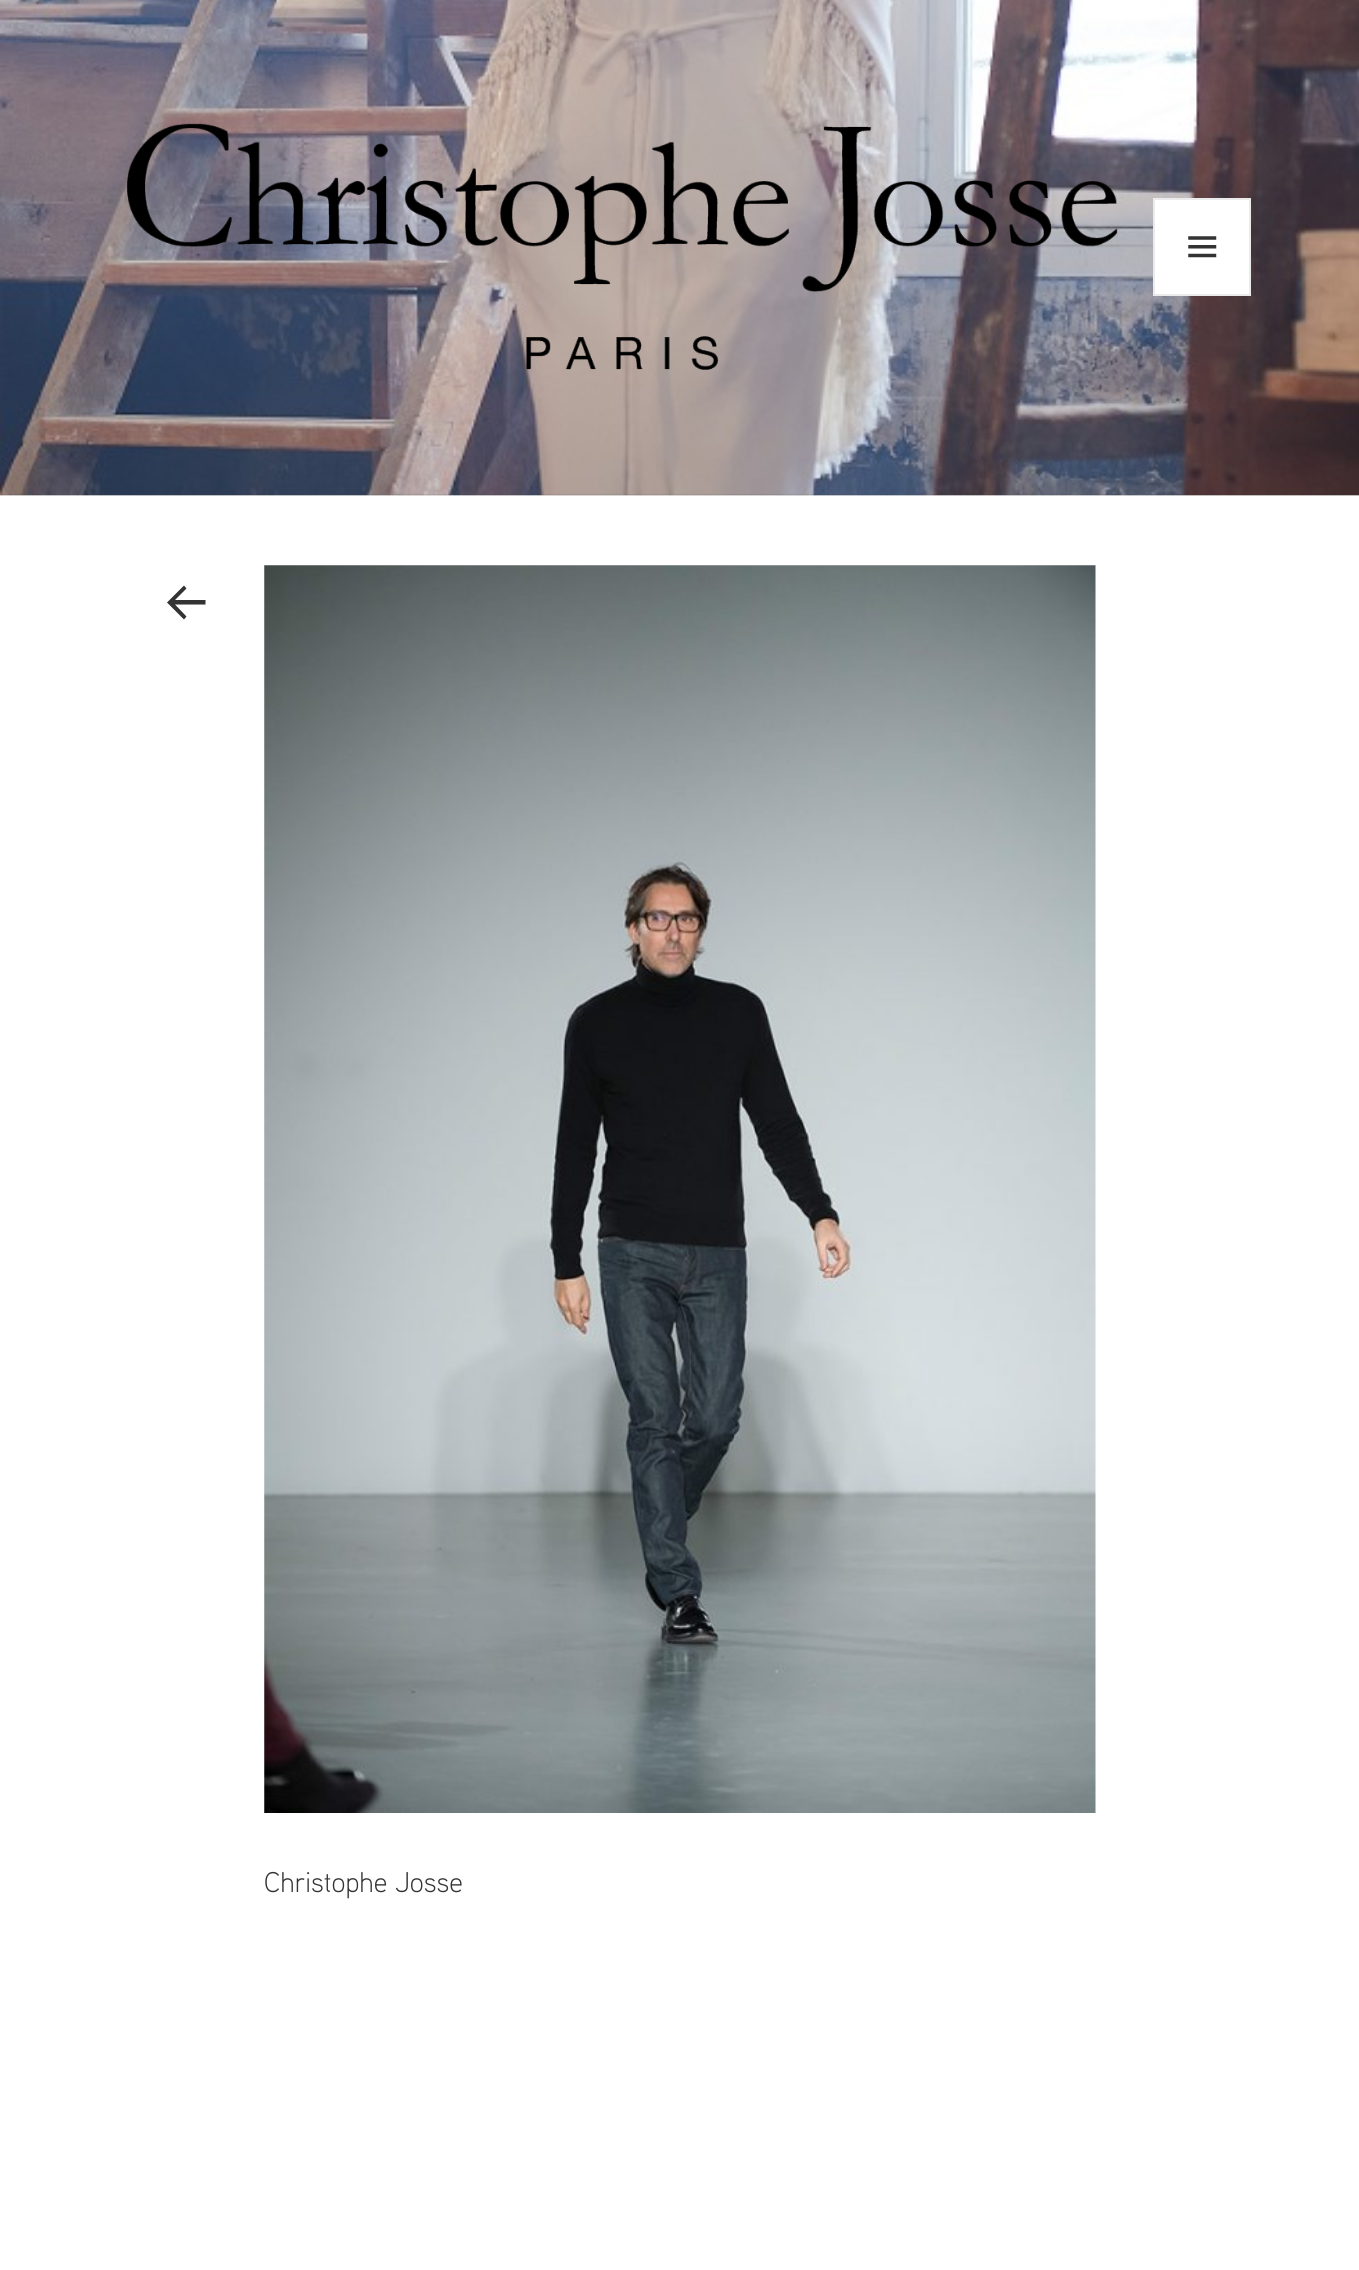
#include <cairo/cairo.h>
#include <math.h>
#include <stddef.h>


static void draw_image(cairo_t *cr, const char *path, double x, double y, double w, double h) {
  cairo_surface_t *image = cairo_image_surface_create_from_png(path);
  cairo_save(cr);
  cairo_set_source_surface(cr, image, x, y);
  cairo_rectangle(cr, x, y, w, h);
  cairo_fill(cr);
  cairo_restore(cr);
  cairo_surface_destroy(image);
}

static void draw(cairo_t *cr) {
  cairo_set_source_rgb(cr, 1, 1, 1);
  cairo_paint(cr);
  draw_image(cr, "images/1.png", 0, 0, 1359, 496);
  cairo_set_source_rgba(cr, 51 / 255.0, 51 / 255.0, 51 / 255.0, 0.1);
  cairo_rectangle(cr, 0, 494, 1359, 2);
  cairo_fill(cr);
  draw_image(cr, "images/2.png", 127, 123, 991, 247);
  cairo_set_source_rgb(cr, 1, 1, 1);
  cairo_rectangle(cr, 1154, 199, 96, 96);
  cairo_fill_preserve(cr);
  cairo_set_source_rgb(cr, 235 / 255.0, 235 / 255.0, 235 / 255.0);
  cairo_stroke(cr);
  draw_image(cr, "images/3.png", 1188, 236, 29, 22);
  cairo_set_source_rgb(cr, 51 / 255.0, 51 / 255.0, 51 / 255.0);
  cairo_new_path(cr);
  cairo_move_to(cr, 184, 585.5);
  cairo_line_to(cr, 186.5, 588.5);
  cairo_line_to(cr, 175, 600);
  cairo_line_to(cr, 205.5, 600);
  cairo_line_to(cr, 205.5, 604.5);
  cairo_line_to(cr, 175, 604.5);
  cairo_line_to(cr, 186.5, 616.5);
  cairo_line_to(cr, 184, 619.5);
  cairo_line_to(cr, 167, 602.5);
  cairo_close_path(cr);
  cairo_fill(cr);
  draw_image(cr, "images/4.png", 264, 565, 832, 1248);
  cairo_select_font_face(cr, "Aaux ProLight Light", CAIRO_FONT_SLANT_NORMAL, CAIRO_FONT_WEIGHT_NORMAL);
  cairo_set_font_size(cr, 28.5);
  cairo_move_to(cr, 264, 1892);
  cairo_show_text(cr, "Christophe Josse");
}

int main(void) {
  cairo_surface_t *surface = cairo_image_surface_create(CAIRO_FORMAT_RGB24, 1359, 2270);
  cairo_t *cr = cairo_create(surface);
  cairo_font_options_t *options = cairo_font_options_create();
  cairo_font_options_set_hint_metrics(options, CAIRO_HINT_METRICS_OFF);
  cairo_font_options_set_hint_style(options, CAIRO_HINT_STYLE_NONE);
  cairo_set_font_options(cr, options);
  cairo_set_miter_limit(cr, 4);
  draw(cr);
  cairo_surface_write_to_png(surface, "out.png");
  cairo_font_options_destroy(options);
  cairo_destroy(cr);
  cairo_surface_destroy(surface);
  return 0;
}
